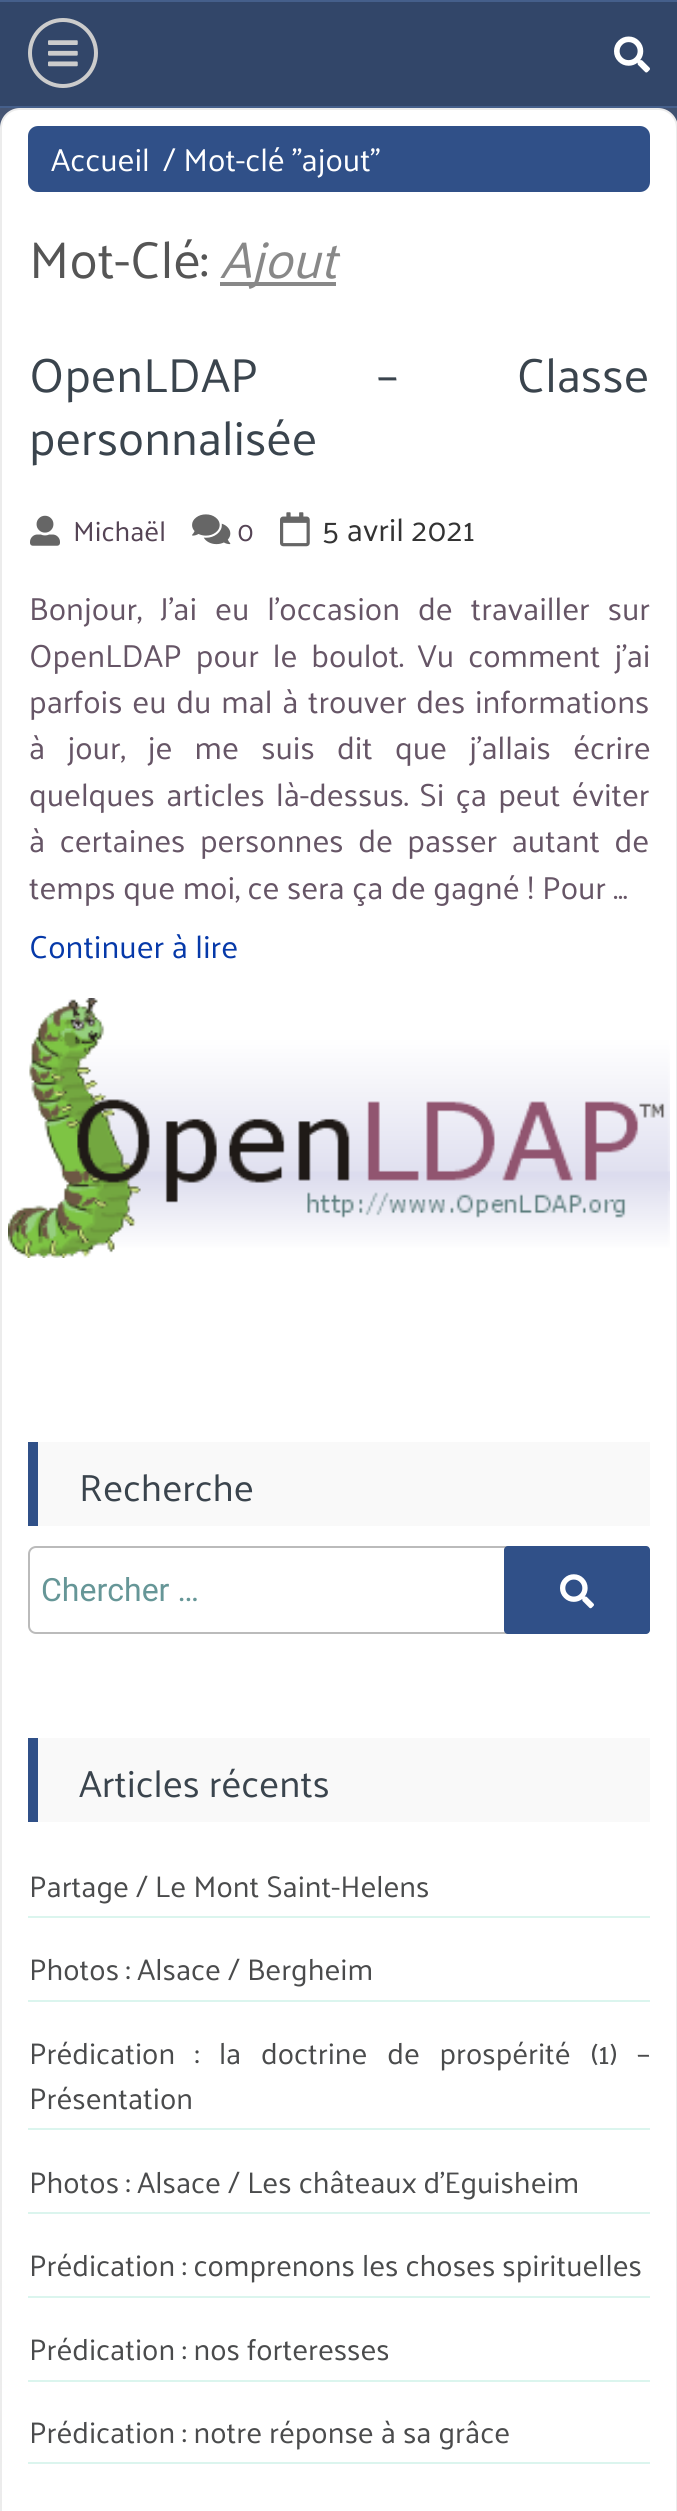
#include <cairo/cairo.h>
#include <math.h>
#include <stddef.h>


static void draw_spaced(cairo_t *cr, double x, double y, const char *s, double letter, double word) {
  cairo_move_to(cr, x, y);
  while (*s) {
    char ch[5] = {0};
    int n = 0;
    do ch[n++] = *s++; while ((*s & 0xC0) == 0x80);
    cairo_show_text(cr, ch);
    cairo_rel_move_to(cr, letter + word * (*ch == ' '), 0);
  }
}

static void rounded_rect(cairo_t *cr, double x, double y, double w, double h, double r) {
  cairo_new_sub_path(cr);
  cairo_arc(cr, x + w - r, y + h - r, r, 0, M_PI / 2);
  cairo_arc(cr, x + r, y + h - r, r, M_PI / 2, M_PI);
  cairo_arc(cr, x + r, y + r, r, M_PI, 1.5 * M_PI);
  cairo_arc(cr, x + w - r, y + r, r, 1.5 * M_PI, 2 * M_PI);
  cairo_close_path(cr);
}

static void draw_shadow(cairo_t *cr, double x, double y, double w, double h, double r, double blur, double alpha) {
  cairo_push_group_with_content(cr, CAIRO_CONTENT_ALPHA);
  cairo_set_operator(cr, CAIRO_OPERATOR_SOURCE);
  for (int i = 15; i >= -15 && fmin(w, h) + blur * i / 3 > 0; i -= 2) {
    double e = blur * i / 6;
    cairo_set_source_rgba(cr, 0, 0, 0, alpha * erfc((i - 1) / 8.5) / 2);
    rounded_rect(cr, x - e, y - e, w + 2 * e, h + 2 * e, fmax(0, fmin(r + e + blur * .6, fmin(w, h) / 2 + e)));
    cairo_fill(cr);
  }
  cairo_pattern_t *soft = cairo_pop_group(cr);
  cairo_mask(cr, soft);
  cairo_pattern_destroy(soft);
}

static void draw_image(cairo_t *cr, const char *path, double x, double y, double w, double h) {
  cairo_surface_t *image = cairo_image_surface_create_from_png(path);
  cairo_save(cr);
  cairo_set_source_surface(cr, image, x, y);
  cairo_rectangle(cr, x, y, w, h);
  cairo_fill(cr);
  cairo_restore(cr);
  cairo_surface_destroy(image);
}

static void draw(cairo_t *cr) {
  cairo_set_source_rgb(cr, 1, 1, 1);
  cairo_paint(cr);
  draw_image(cr, "images/1.png", 0, 108, 677, 20);
  cairo_set_source_rgb(cr, 0, 0, 0);
  draw_shadow(cr, 0, 112, 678, 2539, 20, 40, 0.1);
  cairo_set_source_rgb(cr, 50 / 255.0, 70 / 255.0, 105 / 255.0);
  cairo_rectangle(cr, 0, 2, 677, 104);
  cairo_fill(cr);
  cairo_set_source_rgb(cr, 69 / 255.0, 95 / 255.0, 139 / 255.0);
  cairo_rectangle(cr, 0, 0, 677, 2);
  cairo_fill(cr);
  cairo_rectangle(cr, 0, 106, 677, 2);
  cairo_fill(cr);
  cairo_arc(cr, 63, 53, 33, 0, 2 * M_PI);
  cairo_set_source_rgb(cr, 204 / 255.0, 204 / 255.0, 204 / 255.0);
  cairo_set_line_width(cr, 4);
  cairo_stroke(cr);
  draw_image(cr, "images/2.png", 48, 40, 30, 27);
  draw_image(cr, "images/3.png", 614, 36, 36, 37);
  cairo_set_source_rgb(cr, 1, 1, 1);
  cairo_new_path(cr);
  cairo_move_to(cr, 20, 109);
  cairo_line_to(cr, 658, 109);
  cairo_curve_to(cr, 668.5, 109, 677, 117.5, 677, 128);
  cairo_line_to(cr, 677, 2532);
  cairo_line_to(cr, 1, 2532);
  cairo_line_to(cr, 1, 128);
  cairo_curve_to(cr, 1, 117.5, 9.5, 109, 20, 109);
  cairo_close_path(cr);
  cairo_fill_preserve(cr);
  cairo_set_source_rgb(cr, 236 / 255.0, 236 / 255.0, 236 / 255.0);
  cairo_set_line_width(cr, 2);
  cairo_stroke(cr);
  cairo_set_source_rgb(cr, 48 / 255.0, 80 / 255.0, 136 / 255.0);
  rounded_rect(cr, 28, 126, 622, 66, 10);
  cairo_fill(cr);
  cairo_set_source_rgb(cr, 136 / 255.0, 136 / 255.0, 136 / 255.0);
  cairo_rectangle(cr, 220, 282, 116, 4);
  cairo_fill(cr);
  draw_image(cr, "images/4.png", 30, 515, 30, 31);
  draw_image(cr, "images/5.png", 192, 514, 39, 31);
  draw_image(cr, "images/6.png", 280, 512, 30, 35);
  draw_image(cr, "images/7.png", 8, 998, 662, 260);
  cairo_set_source_rgb(cr, 249 / 255.0, 249 / 255.0, 249 / 255.0);
  cairo_rectangle(cr, 38, 1442, 612, 84);
  cairo_fill(cr);
  cairo_set_source_rgb(cr, 48 / 255.0, 80 / 255.0, 136 / 255.0);
  cairo_rectangle(cr, 28, 1442, 10, 84);
  cairo_fill(cr);
  rounded_rect(cr, 29, 1547, 620, 86, 7);
  cairo_set_source_rgb(cr, 187 / 255.0, 187 / 255.0, 187 / 255.0);
  cairo_stroke(cr);
  cairo_set_source_rgb(cr, 48 / 255.0, 80 / 255.0, 136 / 255.0);
  rounded_rect(cr, 504, 1546, 146, 88, 4);
  cairo_fill(cr);
  draw_image(cr, "images/8.png", 560, 1574, 34, 35);
  cairo_set_source_rgb(cr, 249 / 255.0, 249 / 255.0, 249 / 255.0);
  cairo_rectangle(cr, 38, 1738, 612, 84);
  cairo_fill(cr);
  cairo_set_source_rgb(cr, 48 / 255.0, 80 / 255.0, 136 / 255.0);
  cairo_rectangle(cr, 28, 1738, 10, 84);
  cairo_fill(cr);
  cairo_set_source_rgb(cr, 219 / 255.0, 245 / 255.0, 238 / 255.0);
  cairo_rectangle(cr, 28, 1916, 622, 2);
  cairo_fill(cr);
  cairo_rectangle(cr, 28, 2000, 622, 2);
  cairo_fill(cr);
  cairo_rectangle(cr, 28, 2128, 622, 2);
  cairo_fill(cr);
  cairo_rectangle(cr, 28, 2212, 622, 2);
  cairo_fill(cr);
  cairo_rectangle(cr, 28, 2296, 622, 2);
  cairo_fill(cr);
  cairo_rectangle(cr, 28, 2380, 622, 2);
  cairo_fill(cr);
  cairo_rectangle(cr, 28, 2462, 622, 2);
  cairo_fill(cr);
  cairo_select_font_face(cr, "Palanquin", CAIRO_FONT_SLANT_NORMAL, CAIRO_FONT_WEIGHT_NORMAL);
  cairo_set_font_size(cr, 32);
  cairo_set_source_rgb(cr, 1, 1, 1);
  cairo_move_to(cr, 51, 171);
  cairo_show_text(cr, "Accueil");
  cairo_move_to(cr, 163, 171);
  cairo_show_text(cr, "/ Mot-clé \"ajout\"");
  cairo_set_font_size(cr, 52);
  cairo_set_source_rgb(cr, 85 / 255.0, 85 / 255.0, 85 / 255.0);
  cairo_move_to(cr, 29, 278);
  cairo_show_text(cr, "Mot-Clé:");
  cairo_select_font_face(cr, "Palanquin", CAIRO_FONT_SLANT_ITALIC, CAIRO_FONT_WEIGHT_NORMAL);
  cairo_set_source_rgb(cr, 136 / 255.0, 136 / 255.0, 136 / 255.0);
  cairo_move_to(cr, 220, 278);
  cairo_show_text(cr, "Ajout");
  cairo_select_font_face(cr, "Palanquin", CAIRO_FONT_SLANT_NORMAL, CAIRO_FONT_WEIGHT_NORMAL);
  cairo_set_font_size(cr, 48);
  cairo_set_source_rgb(cr, 58 / 255.0, 68 / 255.0, 77 / 255.0);
  draw_spaced(cr, 29, 392, "OpenLDAP – Classe", 0, 108);
  cairo_move_to(cr, 29, 455);
  cairo_show_text(cr, "personnalisée");
  cairo_set_font_size(cr, 28);
  cairo_set_source_rgb(cr, 85 / 255.0, 68 / 255.0, 85 / 255.0);
  cairo_move_to(cr, 73, 541);
  cairo_show_text(cr, "Michaël");
  cairo_move_to(cr, 237, 541);
  cairo_show_text(cr, "0");
  cairo_set_font_size(cr, 32);
  cairo_set_source_rgb(cr, 51 / 255.0, 51 / 255.0, 51 / 255.0);
  cairo_move_to(cr, 322, 541);
  cairo_show_text(cr, "5 avril 2021");
  cairo_set_source_rgb(cr, 102 / 255.0, 85 / 255.0, 102 / 255.0);
  draw_spaced(cr, 29, 620, "Bonjour, J’ai eu l’occasion de travailler sur", 0, 10.5);
  draw_spaced(cr, 29, 667, "OpenLDAP pour le boulot. Vu comment j’ai", 0, 6.5);
  draw_spaced(cr, 29, 713, "parfois eu du mal à trouver des informations", 0, 2.25);
  draw_spaced(cr, 29, 759, "à jour, je me suis dit que j’allais écrire", 0, 14.75);
  draw_spaced(cr, 29, 806, "quelques articles là-dessus. Si ça peut éviter", 0, 3.75);
  draw_spaced(cr, 29, 852, "à certaines personnes de passer autant de", 0, 7);
  cairo_move_to(cr, 29, 899);
  cairo_show_text(cr, "temps que moi, ce sera ça de gagné ! Pour …");
  cairo_set_source_rgb(cr, 6 / 255.0, 57 / 255.0, 169 / 255.0);
  cairo_move_to(cr, 29, 958);
  cairo_show_text(cr, "Continuer à lire");
  cairo_set_font_size(cr, 38);
  cairo_set_source_rgb(cr, 58 / 255.0, 68 / 255.0, 77 / 255.0);
  cairo_move_to(cr, 79, 1501);
  cairo_show_text(cr, "Recherche");
  cairo_select_font_face(cr, "Roboto", CAIRO_FONT_SLANT_NORMAL, CAIRO_FONT_WEIGHT_NORMAL);
  cairo_set_font_size(cr, 32);
  cairo_set_source_rgb(cr, 102 / 255.0, 150 / 255.0, 151 / 255.0);
  cairo_move_to(cr, 41, 1601);
  cairo_show_text(cr, "Chercher …");
  cairo_select_font_face(cr, "Palanquin", CAIRO_FONT_SLANT_NORMAL, CAIRO_FONT_WEIGHT_NORMAL);
  cairo_set_font_size(cr, 38);
  cairo_set_source_rgb(cr, 58 / 255.0, 68 / 255.0, 77 / 255.0);
  cairo_move_to(cr, 79, 1797);
  cairo_show_text(cr, "Articles récents");
  cairo_set_font_size(cr, 30);
  cairo_set_source_rgb(cr, 74 / 255.0, 75 / 255.0, 76 / 255.0);
  cairo_move_to(cr, 29, 1897);
  cairo_show_text(cr, "Partage / Le Mont Saint-Helens");
  cairo_move_to(cr, 29, 1980);
  cairo_show_text(cr, "Photos : Alsace / Bergheim");
  draw_spaced(cr, 29, 2064, "Prédication : la doctrine de prospérité (1) –", 0, 12.75);
  cairo_move_to(cr, 29, 2109);
  cairo_show_text(cr, "Présentation");
  cairo_move_to(cr, 29, 2193);
  cairo_show_text(cr, "Photos : Alsace / Les châteaux d’Eguisheim");
  cairo_move_to(cr, 29, 2276);
  cairo_show_text(cr, "Prédication : comprenons les choses spirituelles");
  cairo_move_to(cr, 29, 2360);
  cairo_show_text(cr, "Prédication : nos forteresses");
  cairo_move_to(cr, 29, 2443);
  cairo_show_text(cr, "Prédication : notre réponse à sa grâce");
}

int main(void) {
  cairo_surface_t *surface = cairo_image_surface_create(CAIRO_FORMAT_RGB24, 677, 2511);
  cairo_t *cr = cairo_create(surface);
  cairo_font_options_t *options = cairo_font_options_create();
  cairo_font_options_set_hint_metrics(options, CAIRO_HINT_METRICS_OFF);
  cairo_font_options_set_hint_style(options, CAIRO_HINT_STYLE_NONE);
  cairo_set_font_options(cr, options);
  cairo_set_miter_limit(cr, 4);
  draw(cr);
  cairo_surface_write_to_png(surface, "out.png");
  cairo_font_options_destroy(options);
  cairo_destroy(cr);
  cairo_surface_destroy(surface);
  return 0;
}
